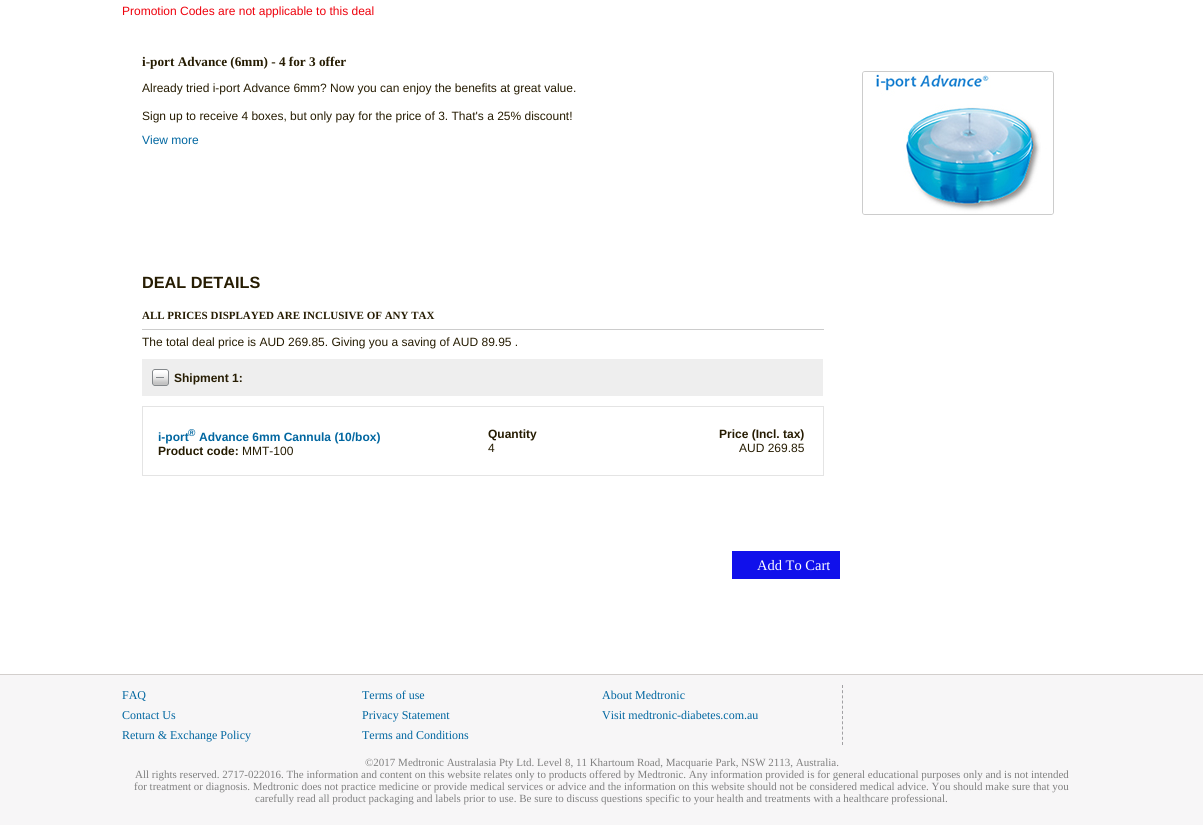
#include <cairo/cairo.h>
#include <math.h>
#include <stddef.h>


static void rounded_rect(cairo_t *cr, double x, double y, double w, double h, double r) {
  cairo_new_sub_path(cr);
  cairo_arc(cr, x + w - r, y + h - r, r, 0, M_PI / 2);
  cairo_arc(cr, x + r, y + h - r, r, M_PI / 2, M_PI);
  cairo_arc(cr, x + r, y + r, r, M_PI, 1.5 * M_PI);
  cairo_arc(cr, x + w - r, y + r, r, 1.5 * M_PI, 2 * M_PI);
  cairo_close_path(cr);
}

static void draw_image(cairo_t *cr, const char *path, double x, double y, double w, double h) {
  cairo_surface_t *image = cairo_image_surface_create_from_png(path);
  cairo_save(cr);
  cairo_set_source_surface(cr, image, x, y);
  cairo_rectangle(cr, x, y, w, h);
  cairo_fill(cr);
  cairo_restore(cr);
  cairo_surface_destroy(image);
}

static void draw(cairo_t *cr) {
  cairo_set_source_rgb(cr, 1, 1, 1);
  cairo_paint(cr);
  rounded_rect(cr, 862.5, 71.5, 191, 143, 2.5);
  cairo_set_source_rgb(cr, 204 / 255.0, 204 / 255.0, 204 / 255.0);
  cairo_set_line_width(cr, 1);
  cairo_stroke(cr);
  draw_image(cr, "images/1.png", 863, 72, 190, 142);
  cairo_rectangle(cr, 142, 329, 682, 1);
  cairo_fill(cr);
  cairo_set_source_rgb(cr, 238 / 255.0, 238 / 255.0, 238 / 255.0);
  cairo_rectangle(cr, 142, 359, 681, 37);
  cairo_fill(cr);
  draw_image(cr, "images/2.png", 152, 369, 17, 17);
  cairo_rectangle(cr, 142.5, 406.5, 681, 69);
  cairo_set_source_rgb(cr, 228 / 255.0, 228 / 255.0, 228 / 255.0);
  cairo_stroke(cr);
  cairo_set_source_rgb(cr, 16 / 255.0, 16 / 255.0, 235 / 255.0);
  cairo_rectangle(cr, 732, 551, 108, 28);
  cairo_fill(cr);
  cairo_set_source_rgb(cr, 247 / 255.0, 246 / 255.0, 247 / 255.0);
  cairo_rectangle(cr, 0, 675, 1203, 150);
  cairo_fill(cr);
  cairo_set_source_rgb(cr, 211 / 255.0, 207 / 255.0, 205 / 255.0);
  cairo_rectangle(cr, 0, 674, 1203, 1);
  cairo_fill(cr);
  cairo_new_path(cr);
  cairo_move_to(cr, 842.5, 685);
  cairo_line_to(cr, 842.5, 745);
  cairo_set_source_rgb(cr, 161 / 255.0, 160 / 255.0, 163 / 255.0);
  cairo_set_dash(cr, (double[]){3, 2.18}, 2, 0);
  cairo_stroke(cr);
  cairo_select_font_face(cr, "Liberation Sans", CAIRO_FONT_SLANT_NORMAL, CAIRO_FONT_WEIGHT_NORMAL);
  cairo_set_font_size(cr, 12);
  cairo_set_source_rgb(cr, 238 / 255.0, 1 / 255.0, 12 / 255.0);
  cairo_move_to(cr, 122, 15);
  cairo_show_text(cr, "Promotion Codes are not applicable to this deal");
  cairo_select_font_face(cr, "Liberation Serif", CAIRO_FONT_SLANT_NORMAL, CAIRO_FONT_WEIGHT_BOLD);
  cairo_set_font_size(cr, 13.25);
  cairo_set_source_rgb(cr, 38 / 255.0, 28 / 255.0, 2 / 255.0);
  cairo_move_to(cr, 142, 66);
  cairo_show_text(cr, "i-port Advance (6mm) - 4 for 3 offer");
  cairo_select_font_face(cr, "Liberation Sans", CAIRO_FONT_SLANT_NORMAL, CAIRO_FONT_WEIGHT_NORMAL);
  cairo_set_font_size(cr, 12);
  cairo_move_to(cr, 142, 92);
  cairo_show_text(cr, "Already tried i-port Advance 6mm? Now you can enjoy the benefits at great value.");
  cairo_move_to(cr, 142, 120);
  cairo_show_text(cr, "Sign up to receive 4 boxes, but only pay for the price of 3. That's a 25% discount!");
  cairo_set_source_rgb(cr, 0, 102 / 255.0, 160 / 255.0);
  cairo_move_to(cr, 142, 144);
  cairo_show_text(cr, "View more");
  cairo_select_font_face(cr, "Liberation Sans", CAIRO_FONT_SLANT_NORMAL, CAIRO_FONT_WEIGHT_BOLD);
  cairo_set_font_size(cr, 16.25);
  cairo_set_source_rgb(cr, 38 / 255.0, 28 / 255.0, 2 / 255.0);
  cairo_move_to(cr, 142, 288);
  cairo_show_text(cr, "DEAL DETAILS");
  cairo_select_font_face(cr, "Liberation Serif", CAIRO_FONT_SLANT_NORMAL, CAIRO_FONT_WEIGHT_BOLD);
  cairo_set_font_size(cr, 11);
  cairo_move_to(cr, 142, 319);
  cairo_show_text(cr, "ALL PRICES DISPLAYED ARE INCLUSIVE OF ANY TAX");
  cairo_select_font_face(cr, "Liberation Sans", CAIRO_FONT_SLANT_NORMAL, CAIRO_FONT_WEIGHT_NORMAL);
  cairo_set_font_size(cr, 12);
  cairo_move_to(cr, 142, 346);
  cairo_show_text(cr, "The total deal price is AUD 269.85. Giving you a saving of AUD 89.95 .");
  cairo_select_font_face(cr, "Liberation Sans", CAIRO_FONT_SLANT_NORMAL, CAIRO_FONT_WEIGHT_BOLD);
  cairo_move_to(cr, 174, 382);
  cairo_show_text(cr, "Shipment 1:");
  cairo_set_source_rgb(cr, 0, 102 / 255.0, 160 / 255.0);
  cairo_move_to(cr, 158, 441);
  cairo_show_text(cr, "i-port");
  cairo_set_font_size(cr, 10);
  cairo_move_to(cr, 188, 436);
  cairo_show_text(cr, "®");
  cairo_set_font_size(cr, 12);
  cairo_move_to(cr, 199, 441);
  cairo_show_text(cr, "Advance 6mm Cannula (10/box)");
  cairo_set_source_rgb(cr, 38 / 255.0, 28 / 255.0, 2 / 255.0);
  cairo_move_to(cr, 158, 455);
  cairo_show_text(cr, "Product code:");
  cairo_select_font_face(cr, "Liberation Sans", CAIRO_FONT_SLANT_NORMAL, CAIRO_FONT_WEIGHT_NORMAL);
  cairo_move_to(cr, 242, 455);
  cairo_show_text(cr, "MMT-100");
  cairo_select_font_face(cr, "Liberation Sans", CAIRO_FONT_SLANT_NORMAL, CAIRO_FONT_WEIGHT_BOLD);
  cairo_move_to(cr, 488, 438);
  cairo_show_text(cr, "Quantity");
  cairo_select_font_face(cr, "Liberation Sans", CAIRO_FONT_SLANT_NORMAL, CAIRO_FONT_WEIGHT_NORMAL);
  cairo_move_to(cr, 488, 452);
  cairo_show_text(cr, "4");
  cairo_select_font_face(cr, "Liberation Sans", CAIRO_FONT_SLANT_NORMAL, CAIRO_FONT_WEIGHT_BOLD);
  cairo_move_to(cr, 719, 438);
  cairo_show_text(cr, "Price (Incl. tax)");
  cairo_select_font_face(cr, "Liberation Sans", CAIRO_FONT_SLANT_NORMAL, CAIRO_FONT_WEIGHT_NORMAL);
  cairo_move_to(cr, 739, 452);
  cairo_show_text(cr, "AUD 269.85");
  cairo_select_font_face(cr, "Liberation Serif", CAIRO_FONT_SLANT_NORMAL, CAIRO_FONT_WEIGHT_NORMAL);
  cairo_set_font_size(cr, 14.5);
  cairo_set_source_rgb(cr, 1, 1, 1);
  cairo_move_to(cr, 757, 570);
  cairo_show_text(cr, "Add To Cart");
  cairo_set_font_size(cr, 12);
  cairo_set_source_rgb(cr, 0, 102 / 255.0, 160 / 255.0);
  cairo_move_to(cr, 122, 699);
  cairo_show_text(cr, "FAQ");
  cairo_move_to(cr, 122, 719);
  cairo_show_text(cr, "Contact Us");
  cairo_move_to(cr, 122, 739);
  cairo_show_text(cr, "Return & Exchange Policy");
  cairo_move_to(cr, 362, 699);
  cairo_show_text(cr, "Terms of use");
  cairo_move_to(cr, 362, 719);
  cairo_show_text(cr, "Privacy Statement");
  cairo_move_to(cr, 362, 739);
  cairo_show_text(cr, "Terms and Conditions");
  cairo_move_to(cr, 602, 699);
  cairo_show_text(cr, "About Medtronic");
  cairo_move_to(cr, 602, 719);
  cairo_show_text(cr, "Visit medtronic-diabetes.com.au");
  cairo_set_font_size(cr, 11);
  cairo_set_source_rgb(cr, 128 / 255.0, 128 / 255.0, 128 / 255.0);
  cairo_move_to(cr, 365, 766);
  cairo_show_text(cr, "©2017 Medtronic Australasia Pty Ltd. Level 8, 11 Khartoum Road, Macquarie Park, NSW 2113, Australia.");
  cairo_move_to(cr, 135, 778);
  cairo_show_text(cr, "All rights reserved. 2717-022016. The information and content on this website relates only to products offered by Medtronic. Any information provided is for general educational purposes only and is not intended");
  cairo_move_to(cr, 134, 790);
  cairo_show_text(cr, "for treatment or diagnosis. Medtronic does not practice medicine or provide medical services or advice and the information on this website should not be considered medical advice. You should make sure that you");
  cairo_move_to(cr, 255, 802);
  cairo_show_text(cr, "carefully read all product packaging and labels prior to use. Be sure to discuss questions specific to your health and treatments with a healthcare professional.");
}

int main(void) {
  cairo_surface_t *surface = cairo_image_surface_create(CAIRO_FORMAT_RGB24, 1203, 825);
  cairo_t *cr = cairo_create(surface);
  cairo_font_options_t *options = cairo_font_options_create();
  cairo_font_options_set_hint_metrics(options, CAIRO_HINT_METRICS_OFF);
  cairo_font_options_set_hint_style(options, CAIRO_HINT_STYLE_NONE);
  cairo_set_font_options(cr, options);
  cairo_set_miter_limit(cr, 4);
  draw(cr);
  cairo_surface_write_to_png(surface, "out.png");
  cairo_font_options_destroy(options);
  cairo_destroy(cr);
  cairo_surface_destroy(surface);
  return 0;
}
